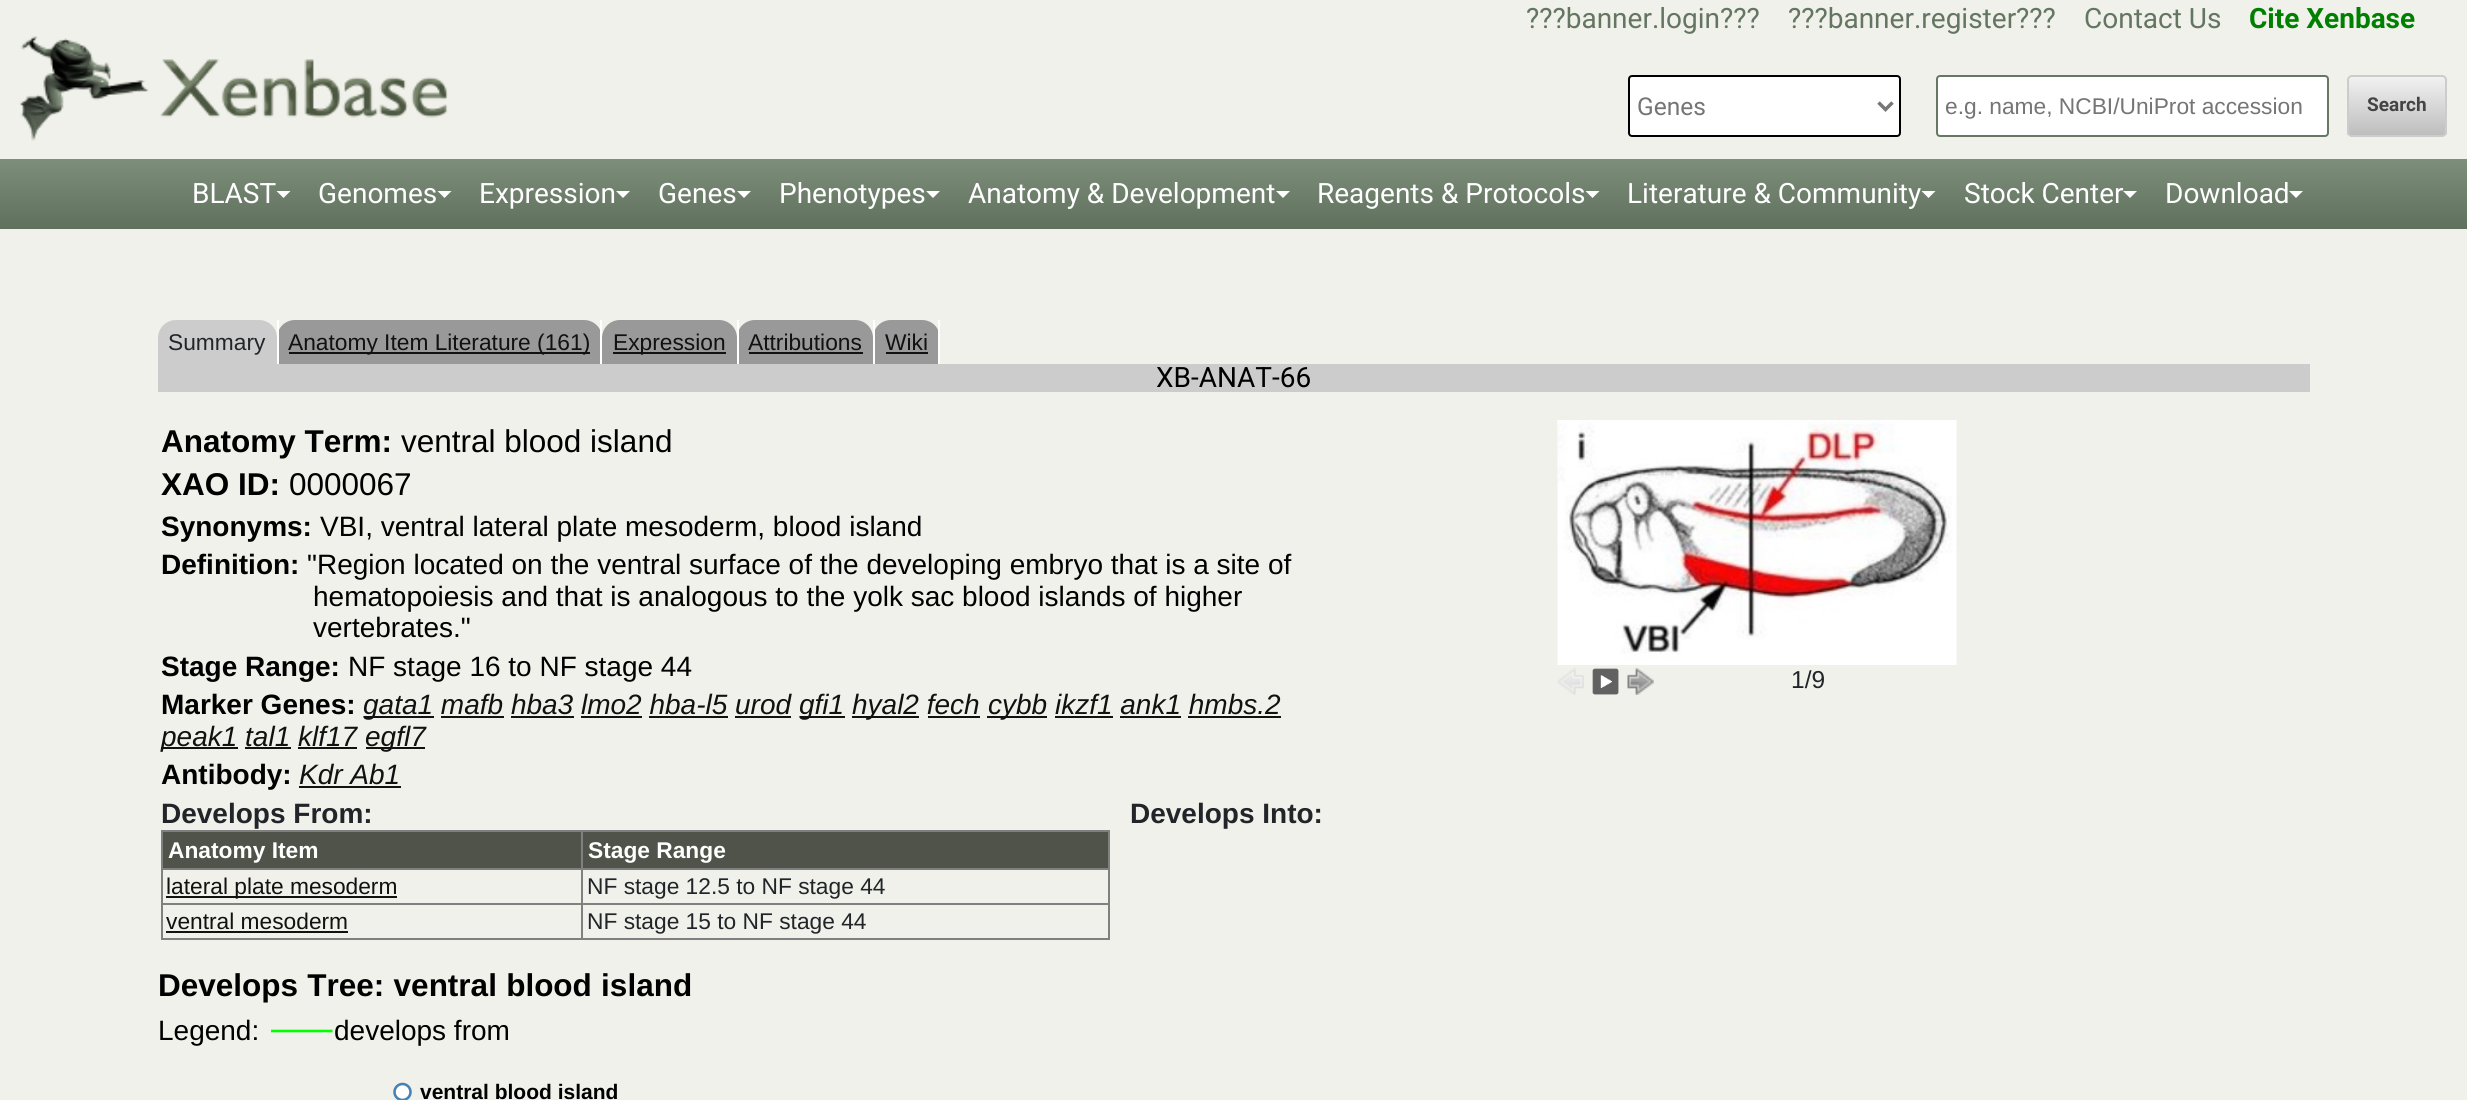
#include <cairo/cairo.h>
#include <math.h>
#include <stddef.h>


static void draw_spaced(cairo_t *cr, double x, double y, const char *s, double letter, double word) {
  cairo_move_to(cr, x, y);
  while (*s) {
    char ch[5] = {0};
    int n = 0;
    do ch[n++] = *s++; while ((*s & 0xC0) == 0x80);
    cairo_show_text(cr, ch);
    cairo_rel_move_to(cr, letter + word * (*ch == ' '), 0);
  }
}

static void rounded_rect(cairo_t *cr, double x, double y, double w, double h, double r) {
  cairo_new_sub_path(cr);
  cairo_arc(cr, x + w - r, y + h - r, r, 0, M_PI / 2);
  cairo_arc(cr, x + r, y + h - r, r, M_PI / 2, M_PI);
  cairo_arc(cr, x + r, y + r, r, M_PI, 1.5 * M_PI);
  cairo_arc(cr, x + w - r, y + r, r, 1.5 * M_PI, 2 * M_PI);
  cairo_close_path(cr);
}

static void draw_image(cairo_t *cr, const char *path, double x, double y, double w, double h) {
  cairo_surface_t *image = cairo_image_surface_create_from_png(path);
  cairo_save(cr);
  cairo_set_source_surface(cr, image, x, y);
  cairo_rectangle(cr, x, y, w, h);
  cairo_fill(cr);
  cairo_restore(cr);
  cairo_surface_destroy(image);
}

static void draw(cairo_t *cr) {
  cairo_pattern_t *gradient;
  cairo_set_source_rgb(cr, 240 / 255.0, 241 / 255.0, 234 / 255.0);
  cairo_paint(cr);
  draw_image(cr, "images/1.png", 19, 36, 429, 105);
  cairo_set_source_rgb(cr, 1, 1, 1);
  rounded_rect(cr, 1629, 76, 271, 60, 3);
  cairo_fill_preserve(cr);
  cairo_set_source_rgb(cr, 0, 0, 0);
  cairo_stroke(cr);
  cairo_new_path(cr);
  cairo_move_to(cr, 1878.5, 102.5);
  cairo_line_to(cr, 1885.5, 109.5);
  cairo_line_to(cr, 1892.5, 102.5);
  cairo_set_source_rgb(cr, 119 / 255.0, 119 / 255.0, 119 / 255.0);
  cairo_set_line_width(cr, 3.5);
  cairo_stroke(cr);
  cairo_set_source_rgb(cr, 1, 1, 1);
  rounded_rect(cr, 1937, 76, 391, 60, 3);
  cairo_fill_preserve(cr);
  cairo_set_source_rgb(cr, 102 / 255.0, 119 / 255.0, 100 / 255.0);
  cairo_set_line_width(cr, 2);
  cairo_stroke(cr);
  cairo_save(cr);
  rounded_rect(cr, 2347, 75, 100, 62, 5);
  cairo_clip(cr);
  gradient = cairo_pattern_create_linear(2397, 77, 2397, 135);
  cairo_pattern_add_color_stop_rgba(gradient, 0, 241 / 255.0, 241 / 255.0, 241 / 255.0, 1);
  cairo_pattern_add_color_stop_rgba(gradient, 1, 190 / 255.0, 190 / 255.0, 190 / 255.0, 1);
  cairo_set_source(cr, gradient);
  cairo_pattern_destroy(gradient);
  cairo_rectangle(cr, 2347, 77, 100, 58);
  cairo_fill(cr);
  cairo_restore(cr);
  rounded_rect(cr, 2348, 76, 98, 60, 4);
  cairo_set_source_rgb(cr, 204 / 255.0, 204 / 255.0, 204 / 255.0);
  cairo_stroke(cr);
  gradient = cairo_pattern_create_linear(1234, 159, 1234, 229);
  cairo_pattern_add_color_stop_rgba(gradient, 0, 125 / 255.0, 142 / 255.0, 123 / 255.0, 1);
  cairo_pattern_add_color_stop_rgba(gradient, 1, 95 / 255.0, 112 / 255.0, 93 / 255.0, 1);
  cairo_set_source(cr, gradient);
  cairo_pattern_destroy(gradient);
  cairo_rectangle(cr, 0, 159, 2467, 70);
  cairo_fill(cr);
  cairo_set_source_rgb(cr, 1, 1, 1);
  cairo_new_path(cr);
  cairo_move_to(cr, 276.5, 191);
  cairo_line_to(cr, 290.5, 191);
  cairo_line_to(cr, 283.5, 198);
  cairo_close_path(cr);
  cairo_fill(cr);
  cairo_new_path(cr);
  cairo_move_to(cr, 437.5, 191);
  cairo_line_to(cr, 451.5, 191);
  cairo_line_to(cr, 444.5, 198);
  cairo_close_path(cr);
  cairo_fill(cr);
  cairo_new_path(cr);
  cairo_move_to(cr, 616, 191);
  cairo_line_to(cr, 630, 191);
  cairo_line_to(cr, 623, 198);
  cairo_close_path(cr);
  cairo_fill(cr);
  cairo_new_path(cr);
  cairo_move_to(cr, 737, 191);
  cairo_line_to(cr, 751, 191);
  cairo_line_to(cr, 744, 198);
  cairo_close_path(cr);
  cairo_fill(cr);
  cairo_new_path(cr);
  cairo_move_to(cr, 926, 191);
  cairo_line_to(cr, 940, 191);
  cairo_line_to(cr, 933, 198);
  cairo_close_path(cr);
  cairo_fill(cr);
  cairo_new_path(cr);
  cairo_move_to(cr, 1276, 191);
  cairo_line_to(cr, 1290, 191);
  cairo_line_to(cr, 1283, 198);
  cairo_close_path(cr);
  cairo_fill(cr);
  cairo_new_path(cr);
  cairo_move_to(cr, 1585.5, 191);
  cairo_line_to(cr, 1599.5, 191);
  cairo_line_to(cr, 1592.5, 198);
  cairo_close_path(cr);
  cairo_fill(cr);
  cairo_new_path(cr);
  cairo_move_to(cr, 1921.5, 191);
  cairo_line_to(cr, 1935.5, 191);
  cairo_line_to(cr, 1928.5, 198);
  cairo_close_path(cr);
  cairo_fill(cr);
  cairo_new_path(cr);
  cairo_move_to(cr, 2123, 191);
  cairo_line_to(cr, 2137, 191);
  cairo_line_to(cr, 2130, 198);
  cairo_close_path(cr);
  cairo_fill(cr);
  cairo_new_path(cr);
  cairo_move_to(cr, 2289, 191);
  cairo_line_to(cr, 2303, 191);
  cairo_line_to(cr, 2296, 198);
  cairo_close_path(cr);
  cairo_fill(cr);
  cairo_set_source_rgb(cr, 204 / 255.0, 204 / 255.0, 204 / 255.0);
  cairo_new_path(cr);
  cairo_move_to(cr, 176, 320);
  cairo_line_to(cr, 259, 320);
  cairo_curve_to(cr, 269, 320, 277, 328, 277, 338);
  cairo_line_to(cr, 277, 364);
  cairo_line_to(cr, 158, 364);
  cairo_line_to(cr, 158, 338);
  cairo_curve_to(cr, 158, 328, 166, 320, 176, 320);
  cairo_close_path(cr);
  cairo_fill(cr);
  cairo_set_source_rgb(cr, 153 / 255.0, 153 / 255.0, 153 / 255.0);
  cairo_new_path(cr);
  cairo_move_to(cr, 295, 320);
  cairo_line_to(cr, 584, 320);
  cairo_curve_to(cr, 594, 320, 602, 328, 602, 338);
  cairo_line_to(cr, 602, 364);
  cairo_line_to(cr, 277, 364);
  cairo_line_to(cr, 277, 338);
  cairo_curve_to(cr, 277, 328, 285, 320, 295, 320);
  cairo_close_path(cr);
  cairo_fill(cr);
  cairo_set_source_rgb(cr, 1, 1, 1);
  cairo_rectangle(cr, 277, 320, 2, 46);
  cairo_fill(cr);
  cairo_rectangle(cr, 600, 320, 2, 46);
  cairo_fill(cr);
  cairo_set_source_rgb(cr, 17 / 255.0, 17 / 255.0, 17 / 255.0);
  cairo_rectangle(cr, 289, 352, 301, 2);
  cairo_fill(cr);
  cairo_set_source_rgb(cr, 153 / 255.0, 153 / 255.0, 153 / 255.0);
  cairo_new_path(cr);
  cairo_move_to(cr, 620, 320);
  cairo_line_to(cr, 719, 320);
  cairo_curve_to(cr, 729, 320, 737, 328, 737, 338);
  cairo_line_to(cr, 737, 364);
  cairo_line_to(cr, 602, 364);
  cairo_line_to(cr, 602, 338);
  cairo_curve_to(cr, 602, 328, 610, 320, 620, 320);
  cairo_close_path(cr);
  cairo_fill(cr);
  cairo_new_path(cr);
  cairo_move_to(cr, 755, 320);
  cairo_line_to(cr, 855, 320);
  cairo_curve_to(cr, 865, 320, 873, 328, 873, 338);
  cairo_line_to(cr, 873, 364);
  cairo_line_to(cr, 737, 364);
  cairo_line_to(cr, 737, 338);
  cairo_curve_to(cr, 737, 328, 745, 320, 755, 320);
  cairo_close_path(cr);
  cairo_fill(cr);
  cairo_set_source_rgb(cr, 1, 1, 1);
  cairo_rectangle(cr, 737, 320, 2, 46);
  cairo_fill(cr);
  cairo_set_source_rgb(cr, 17 / 255.0, 17 / 255.0, 17 / 255.0);
  cairo_rectangle(cr, 613, 352, 113, 2);
  cairo_fill(cr);
  cairo_set_source_rgb(cr, 153 / 255.0, 153 / 255.0, 153 / 255.0);
  cairo_new_path(cr);
  cairo_move_to(cr, 891, 320);
  cairo_line_to(cr, 922, 320);
  cairo_curve_to(cr, 932, 320, 940, 328, 940, 338);
  cairo_line_to(cr, 940, 364);
  cairo_line_to(cr, 873, 364);
  cairo_line_to(cr, 873, 338);
  cairo_curve_to(cr, 873, 328, 881, 320, 891, 320);
  cairo_close_path(cr);
  cairo_fill(cr);
  cairo_set_source_rgb(cr, 1, 1, 1);
  cairo_rectangle(cr, 873, 320, 2, 46);
  cairo_fill(cr);
  cairo_set_source_rgb(cr, 17 / 255.0, 17 / 255.0, 17 / 255.0);
  cairo_rectangle(cr, 749, 352, 114, 2);
  cairo_fill(cr);
  cairo_set_source_rgb(cr, 1, 1, 1);
  cairo_rectangle(cr, 938, 320, 2, 46);
  cairo_fill(cr);
  cairo_set_source_rgb(cr, 17 / 255.0, 17 / 255.0, 17 / 255.0);
  cairo_rectangle(cr, 886, 352, 42, 2);
  cairo_fill(cr);
  cairo_set_source_rgb(cr, 204 / 255.0, 204 / 255.0, 204 / 255.0);
  cairo_rectangle(cr, 158, 364, 2152, 28);
  cairo_fill(cr);
  cairo_set_source_rgb(cr, 17 / 255.0, 17 / 255.0, 17 / 255.0);
  cairo_rectangle(cr, 364, 716, 70, 2);
  cairo_fill(cr);
  cairo_rectangle(cr, 800, 716, 45, 2);
  cairo_fill(cr);
  cairo_rectangle(cr, 852, 716, 67, 2);
  cairo_fill(cr);
  cairo_rectangle(cr, 987, 716, 60, 2);
  cairo_fill(cr);
  cairo_rectangle(cr, 441, 716, 63, 2);
  cairo_fill(cr);
  cairo_rectangle(cr, 511, 716, 63, 2);
  cairo_fill(cr);
  cairo_rectangle(cr, 581, 716, 61, 2);
  cairo_fill(cr);
  cairo_rectangle(cr, 649, 716, 79, 2);
  cairo_fill(cr);
  cairo_rectangle(cr, 735, 716, 56, 2);
  cairo_fill(cr);
  cairo_rectangle(cr, 928, 716, 52, 2);
  cairo_fill(cr);
  cairo_rectangle(cr, 1055, 716, 58, 2);
  cairo_fill(cr);
  cairo_rectangle(cr, 1120, 716, 61, 2);
  cairo_fill(cr);
  cairo_rectangle(cr, 1188, 716, 93, 2);
  cairo_fill(cr);
  cairo_rectangle(cr, 161, 747, 77, 2);
  cairo_fill(cr);
  cairo_rectangle(cr, 366, 747, 59, 2);
  cairo_fill(cr);
  cairo_rectangle(cr, 245, 747, 46, 2);
  cairo_fill(cr);
  cairo_rectangle(cr, 298, 747, 59, 2);
  cairo_fill(cr);
  cairo_rectangle(cr, 299, 786, 102, 2);
  cairo_fill(cr);
  draw_image(cr, "images/2.png", 1557, 420, 400, 245);
  draw_image(cr, "images/3.png", 1557, 668, 27, 27);
  draw_image(cr, "images/4.png", 1592, 668, 27, 27);
  draw_image(cr, "images/5.png", 1627, 668, 27, 27);
  cairo_set_source_rgb(cr, 128 / 255.0, 128 / 255.0, 128 / 255.0);
  cairo_rectangle(cr, 161, 830, 949, 2);
  cairo_fill(cr);
  cairo_rectangle(cr, 1108, 830, 2, 110);
  cairo_fill(cr);
  cairo_rectangle(cr, 161, 938, 949, 2);
  cairo_fill(cr);
  cairo_rectangle(cr, 161, 830, 2, 110);
  cairo_fill(cr);
  cairo_set_source_rgb(cr, 80 / 255.0, 83 / 255.0, 73 / 255.0);
  cairo_rectangle(cr, 163, 832, 418, 36);
  cairo_fill(cr);
  cairo_rectangle(cr, 583, 832, 525, 36);
  cairo_fill(cr);
  cairo_set_source_rgb(cr, 128 / 255.0, 128 / 255.0, 128 / 255.0);
  cairo_rectangle(cr, 581, 868, 529, 2);
  cairo_fill(cr);
  cairo_rectangle(cr, 581, 903, 529, 2);
  cairo_fill(cr);
  cairo_rectangle(cr, 581, 903, 2, 37);
  cairo_fill(cr);
  cairo_rectangle(cr, 161, 903, 422, 2);
  cairo_fill(cr);
  cairo_rectangle(cr, 581, 868, 2, 37);
  cairo_fill(cr);
  cairo_rectangle(cr, 161, 868, 422, 2);
  cairo_fill(cr);
  cairo_rectangle(cr, 581, 830, 2, 40);
  cairo_fill(cr);
  cairo_set_source_rgb(cr, 17 / 255.0, 17 / 255.0, 17 / 255.0);
  cairo_rectangle(cr, 166, 896, 231, 2);
  cairo_fill(cr);
  cairo_rectangle(cr, 166, 931, 182, 2);
  cairo_fill(cr);
  cairo_new_path(cr);
  cairo_move_to(cr, 271, 1031);
  cairo_line_to(cr, 332.5, 1031);
  cairo_set_source_rgb(cr, 0, 1, 0);
  cairo_set_line_width(cr, 2.6);
  cairo_stroke(cr);
  cairo_set_source_rgb(cr, 1, 1, 1);
  cairo_arc(cr, 402.5, 1092, 8, 0, 2 * M_PI);
  cairo_fill_preserve(cr);
  cairo_set_source_rgb(cr, 70 / 255.0, 130 / 255.0, 180 / 255.0);
  cairo_stroke(cr);
  cairo_select_font_face(cr, "Roboto", CAIRO_FONT_SLANT_NORMAL, CAIRO_FONT_WEIGHT_NORMAL);
  cairo_set_font_size(cr, 28);
  cairo_set_source_rgb(cr, 100 / 255.0, 117 / 255.0, 98 / 255.0);
  cairo_move_to(cr, 1526, 28);
  cairo_show_text(cr, "?\077?banner.login?\077?");
  cairo_move_to(cr, 1788, 28);
  cairo_show_text(cr, "?\077?banner.register?\077?");
  cairo_move_to(cr, 2084, 28);
  cairo_show_text(cr, "Contact Us");
  cairo_select_font_face(cr, "Roboto", CAIRO_FONT_SLANT_NORMAL, CAIRO_FONT_WEIGHT_BOLD);
  cairo_set_source_rgb(cr, 0, 128 / 255.0, 0);
  cairo_move_to(cr, 2249, 28);
  cairo_show_text(cr, "Cite Xenbase");
  cairo_select_font_face(cr, "Roboto", CAIRO_FONT_SLANT_NORMAL, CAIRO_FONT_WEIGHT_NORMAL);
  cairo_set_font_size(cr, 24.5);
  cairo_set_source_rgb(cr, 117 / 255.0, 117 / 255.0, 117 / 255.0);
  cairo_move_to(cr, 1637, 115);
  cairo_show_text(cr, "Genes");
  cairo_select_font_face(cr, "Liberation Sans", CAIRO_FONT_SLANT_NORMAL, CAIRO_FONT_WEIGHT_NORMAL);
  cairo_set_font_size(cr, 22.75);
  cairo_move_to(cr, 1945, 114);
  cairo_show_text(cr, "e.g. name, NCBI/UniProt accession");
  cairo_select_font_face(cr, "Roboto", CAIRO_FONT_SLANT_NORMAL, CAIRO_FONT_WEIGHT_BOLD);
  cairo_set_font_size(cr, 19);
  cairo_set_source_rgb(cr, 68 / 255.0, 68 / 255.0, 68 / 255.0);
  cairo_move_to(cr, 2367, 111);
  cairo_show_text(cr, "Search");
  cairo_select_font_face(cr, "Roboto", CAIRO_FONT_SLANT_NORMAL, CAIRO_FONT_WEIGHT_NORMAL);
  cairo_set_font_size(cr, 28);
  cairo_set_source_rgb(cr, 1, 1, 1);
  cairo_move_to(cr, 192, 203);
  cairo_show_text(cr, "BLAST");
  cairo_move_to(cr, 318, 203);
  cairo_show_text(cr, "Genomes");
  cairo_move_to(cr, 479, 203);
  cairo_show_text(cr, "Expression");
  cairo_move_to(cr, 658, 203);
  cairo_show_text(cr, "Genes");
  cairo_move_to(cr, 779, 203);
  cairo_show_text(cr, "Phenotypes");
  cairo_move_to(cr, 968, 203);
  cairo_show_text(cr, "Anatomy & Development");
  cairo_move_to(cr, 1317, 203);
  cairo_show_text(cr, "Reagents & Protocols");
  cairo_move_to(cr, 1627, 203);
  cairo_show_text(cr, "Literature & Community");
  cairo_move_to(cr, 1964, 203);
  cairo_show_text(cr, "Stock Center");
  cairo_move_to(cr, 2165, 203);
  cairo_show_text(cr, "Download");
  cairo_select_font_face(cr, "Liberation Sans", CAIRO_FONT_SLANT_NORMAL, CAIRO_FONT_WEIGHT_NORMAL);
  cairo_set_font_size(cr, 22.75);
  cairo_set_source_rgb(cr, 33 / 255.0, 37 / 255.0, 41 / 255.0);
  cairo_move_to(cr, 168, 350);
  cairo_show_text(cr, "Summary");
  cairo_set_source_rgb(cr, 17 / 255.0, 17 / 255.0, 17 / 255.0);
  cairo_move_to(cr, 288, 350);
  cairo_show_text(cr, "Anatomy Item Literature (161)");
  cairo_move_to(cr, 613, 350);
  cairo_show_text(cr, "Expression");
  cairo_move_to(cr, 748, 350);
  cairo_show_text(cr, "Attributions");
  cairo_move_to(cr, 885, 350);
  cairo_show_text(cr, "Wiki");
  cairo_select_font_face(cr, "Roboto", CAIRO_FONT_SLANT_NORMAL, CAIRO_FONT_WEIGHT_NORMAL);
  cairo_set_font_size(cr, 28);
  cairo_set_source_rgb(cr, 0, 0, 0);
  cairo_move_to(cr, 1156, 387);
  cairo_show_text(cr, "XB-ANAT-66");
  cairo_select_font_face(cr, "Liberation Sans", CAIRO_FONT_SLANT_NORMAL, CAIRO_FONT_WEIGHT_BOLD);
  cairo_set_font_size(cr, 31.5);
  cairo_move_to(cr, 161, 452);
  cairo_show_text(cr, "Anatomy Term:");
  cairo_select_font_face(cr, "Liberation Sans", CAIRO_FONT_SLANT_NORMAL, CAIRO_FONT_WEIGHT_NORMAL);
  cairo_move_to(cr, 401, 452);
  cairo_show_text(cr, "ventral blood island");
  cairo_select_font_face(cr, "Liberation Sans", CAIRO_FONT_SLANT_NORMAL, CAIRO_FONT_WEIGHT_BOLD);
  cairo_move_to(cr, 161, 495);
  cairo_show_text(cr, "XAO ID:");
  cairo_select_font_face(cr, "Liberation Sans", CAIRO_FONT_SLANT_NORMAL, CAIRO_FONT_WEIGHT_NORMAL);
  cairo_move_to(cr, 289, 495);
  cairo_show_text(cr, "0000067");
  cairo_select_font_face(cr, "Liberation Sans", CAIRO_FONT_SLANT_NORMAL, CAIRO_FONT_WEIGHT_BOLD);
  cairo_set_font_size(cr, 28);
  cairo_move_to(cr, 161, 536);
  cairo_show_text(cr, "Synonyms:");
  cairo_select_font_face(cr, "Liberation Sans", CAIRO_FONT_SLANT_NORMAL, CAIRO_FONT_WEIGHT_NORMAL);
  cairo_move_to(cr, 320, 536);
  cairo_show_text(cr, "VBI, ventral lateral plate mesoderm, blood island");
  cairo_select_font_face(cr, "Liberation Sans", CAIRO_FONT_SLANT_NORMAL, CAIRO_FONT_WEIGHT_BOLD);
  cairo_move_to(cr, 161, 574);
  cairo_show_text(cr, "Definition:");
  cairo_select_font_face(cr, "Liberation Sans", CAIRO_FONT_SLANT_NORMAL, CAIRO_FONT_WEIGHT_NORMAL);
  cairo_move_to(cr, 307, 574);
  cairo_show_text(cr, "\"Region located on the ventral surface of the developing embryo that is a site of");
  cairo_move_to(cr, 313, 606);
  cairo_show_text(cr, "hematopoiesis and that is analogous to the yolk sac blood islands of higher");
  cairo_move_to(cr, 313, 637);
  cairo_show_text(cr, "vertebrates.\"");
  cairo_select_font_face(cr, "Liberation Sans", CAIRO_FONT_SLANT_NORMAL, CAIRO_FONT_WEIGHT_BOLD);
  cairo_move_to(cr, 161, 676);
  cairo_show_text(cr, "Stage Range:");
  cairo_select_font_face(cr, "Liberation Sans", CAIRO_FONT_SLANT_NORMAL, CAIRO_FONT_WEIGHT_NORMAL);
  cairo_move_to(cr, 348, 676);
  cairo_show_text(cr, "NF stage 16 to NF stage 44");
  cairo_select_font_face(cr, "Liberation Sans", CAIRO_FONT_SLANT_NORMAL, CAIRO_FONT_WEIGHT_BOLD);
  cairo_move_to(cr, 161, 714);
  cairo_show_text(cr, "Marker Genes:");
  cairo_select_font_face(cr, "Liberation Sans", CAIRO_FONT_SLANT_ITALIC, CAIRO_FONT_WEIGHT_NORMAL);
  cairo_set_source_rgb(cr, 17 / 255.0, 17 / 255.0, 17 / 255.0);
  cairo_move_to(cr, 363, 714);
  cairo_show_text(cr, "gata1 mafb hba3 lmo2 hba-l5 urod");
  cairo_move_to(cr, 799, 714);
  cairo_show_text(cr, "gfi1");
  cairo_move_to(cr, 852, 714);
  cairo_show_text(cr, "hyal2 fech");
  cairo_move_to(cr, 988, 714);
  cairo_show_text(cr, "cybb ikzf1 ank1 hmbs.2");
  cairo_move_to(cr, 161, 746);
  cairo_show_text(cr, "peak1 tal1 klf17");
  cairo_move_to(cr, 365, 746);
  cairo_show_text(cr, "egfl7");
  cairo_select_font_face(cr, "Liberation Sans", CAIRO_FONT_SLANT_NORMAL, CAIRO_FONT_WEIGHT_BOLD);
  cairo_set_source_rgb(cr, 0, 0, 0);
  cairo_move_to(cr, 161, 784);
  cairo_show_text(cr, "Antibody:");
  cairo_select_font_face(cr, "Liberation Sans", CAIRO_FONT_SLANT_ITALIC, CAIRO_FONT_WEIGHT_NORMAL);
  cairo_set_source_rgb(cr, 17 / 255.0, 17 / 255.0, 17 / 255.0);
  cairo_move_to(cr, 299, 784);
  cairo_show_text(cr, "Kdr Ab1");
  cairo_select_font_face(cr, "Liberation Sans", CAIRO_FONT_SLANT_NORMAL, CAIRO_FONT_WEIGHT_NORMAL);
  cairo_set_font_size(cr, 24.5);
  cairo_set_source_rgb(cr, 33 / 255.0, 37 / 255.0, 41 / 255.0);
  cairo_move_to(cr, 1791, 688);
  cairo_show_text(cr, "1/9");
  cairo_select_font_face(cr, "Liberation Sans", CAIRO_FONT_SLANT_NORMAL, CAIRO_FONT_WEIGHT_BOLD);
  cairo_set_font_size(cr, 28);
  cairo_move_to(cr, 161, 823);
  cairo_show_text(cr, "Develops From:");
  cairo_set_font_size(cr, 22.75);
  cairo_set_source_rgb(cr, 1, 1, 1);
  cairo_move_to(cr, 168, 858);
  cairo_show_text(cr, "Anatomy Item");
  cairo_move_to(cr, 588, 858);
  cairo_show_text(cr, "Stage Range");
  cairo_select_font_face(cr, "Liberation Sans", CAIRO_FONT_SLANT_NORMAL, CAIRO_FONT_WEIGHT_NORMAL);
  cairo_set_source_rgb(cr, 17 / 255.0, 17 / 255.0, 17 / 255.0);
  cairo_move_to(cr, 166, 894);
  cairo_show_text(cr, "lateral plate mesoderm");
  cairo_set_source_rgb(cr, 33 / 255.0, 37 / 255.0, 41 / 255.0);
  cairo_move_to(cr, 587, 894);
  cairo_show_text(cr, "NF stage 12.5 to NF stage 44");
  cairo_set_source_rgb(cr, 17 / 255.0, 17 / 255.0, 17 / 255.0);
  cairo_move_to(cr, 166, 929);
  cairo_show_text(cr, "ventral mesoderm");
  cairo_set_source_rgb(cr, 33 / 255.0, 37 / 255.0, 41 / 255.0);
  cairo_move_to(cr, 587, 929);
  cairo_show_text(cr, "NF stage 15 to NF stage 44");
  cairo_select_font_face(cr, "Liberation Sans", CAIRO_FONT_SLANT_NORMAL, CAIRO_FONT_WEIGHT_BOLD);
  cairo_set_font_size(cr, 28);
  cairo_move_to(cr, 1130, 823);
  cairo_show_text(cr, "Develops Into:");
  cairo_set_font_size(cr, 31.5);
  cairo_set_source_rgb(cr, 0, 0, 0);
  draw_spaced(cr, 158, 996, "Develops Tree: ventral blood island", 0, 0.5);
  cairo_select_font_face(cr, "Liberation Sans", CAIRO_FONT_SLANT_NORMAL, CAIRO_FONT_WEIGHT_NORMAL);
  cairo_set_font_size(cr, 28);
  cairo_move_to(cr, 158, 1040);
  cairo_show_text(cr, "Legend:");
  cairo_move_to(cr, 334, 1040);
  cairo_show_text(cr, "develops from");
  cairo_select_font_face(cr, "Liberation Sans", CAIRO_FONT_SLANT_NORMAL, CAIRO_FONT_WEIGHT_BOLD);
  cairo_set_font_size(cr, 21);
  cairo_move_to(cr, 420, 1099);
  cairo_show_text(cr, "ventral blood island");
}

int main(void) {
  cairo_surface_t *surface = cairo_image_surface_create(CAIRO_FORMAT_RGB24, 2467, 1100);
  cairo_t *cr = cairo_create(surface);
  cairo_font_options_t *options = cairo_font_options_create();
  cairo_font_options_set_hint_metrics(options, CAIRO_HINT_METRICS_OFF);
  cairo_font_options_set_hint_style(options, CAIRO_HINT_STYLE_NONE);
  cairo_set_font_options(cr, options);
  cairo_set_miter_limit(cr, 4);
  draw(cr);
  cairo_surface_write_to_png(surface, "out.png");
  cairo_font_options_destroy(options);
  cairo_destroy(cr);
  cairo_surface_destroy(surface);
  return 0;
}
